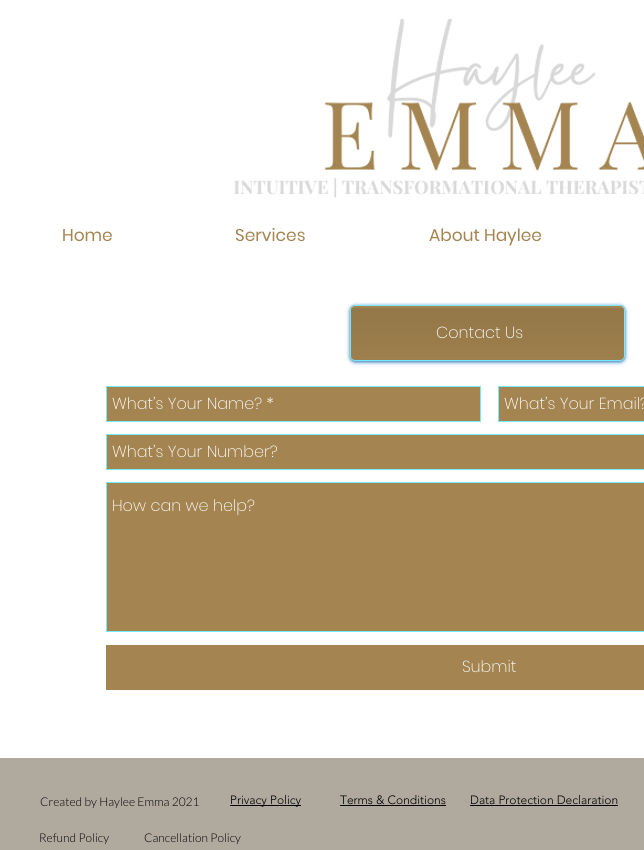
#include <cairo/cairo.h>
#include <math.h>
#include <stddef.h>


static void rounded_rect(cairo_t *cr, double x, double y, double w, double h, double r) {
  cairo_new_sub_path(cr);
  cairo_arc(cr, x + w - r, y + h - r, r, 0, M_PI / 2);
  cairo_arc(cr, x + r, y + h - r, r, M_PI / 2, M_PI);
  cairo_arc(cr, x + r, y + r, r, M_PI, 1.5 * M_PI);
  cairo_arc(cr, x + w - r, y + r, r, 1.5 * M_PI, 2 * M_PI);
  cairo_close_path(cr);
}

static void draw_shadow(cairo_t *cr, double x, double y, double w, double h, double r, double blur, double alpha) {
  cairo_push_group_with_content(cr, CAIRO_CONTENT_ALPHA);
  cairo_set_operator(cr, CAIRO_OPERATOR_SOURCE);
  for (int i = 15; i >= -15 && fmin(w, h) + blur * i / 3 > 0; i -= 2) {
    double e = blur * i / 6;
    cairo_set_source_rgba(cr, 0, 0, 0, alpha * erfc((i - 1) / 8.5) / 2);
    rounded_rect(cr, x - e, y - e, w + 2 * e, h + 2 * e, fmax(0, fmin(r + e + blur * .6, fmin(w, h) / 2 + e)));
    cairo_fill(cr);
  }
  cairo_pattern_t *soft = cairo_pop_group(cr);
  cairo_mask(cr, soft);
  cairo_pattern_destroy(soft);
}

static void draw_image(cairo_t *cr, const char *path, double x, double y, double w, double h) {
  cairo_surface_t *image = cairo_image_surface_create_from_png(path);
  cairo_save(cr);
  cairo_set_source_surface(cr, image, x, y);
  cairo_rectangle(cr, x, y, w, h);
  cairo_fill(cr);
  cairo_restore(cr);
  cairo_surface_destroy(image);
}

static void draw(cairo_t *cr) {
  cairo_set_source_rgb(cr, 1, 1, 1);
  cairo_paint(cr);
  draw_image(cr, "images/1.png", 234, 19, 410, 179);
  cairo_set_source_rgb(cr, 24 / 255.0, 106 / 255.0, 180 / 255.0);
  draw_shadow(cr, 350, 306, 275, 56, 5, 2, 1);
  cairo_set_source_rgb(cr, 164 / 255.0, 132 / 255.0, 80 / 255.0);
  rounded_rect(cr, 350, 305, 275, 56, 5);
  cairo_fill(cr);
  draw_image(cr, "images/2.png", 350, 308, 275, 53);
  rounded_rect(cr, 350.5, 305.5, 274, 55, 4.5);
  cairo_set_source_rgb(cr, 115 / 255.0, 234 / 255.0, 253 / 255.0);
  cairo_set_line_width(cr, 1);
  cairo_stroke(cr);
  cairo_set_source_rgb(cr, 164 / 255.0, 132 / 255.0, 80 / 255.0);
  cairo_rectangle(cr, 106.5, 386.5, 374, 35);
  cairo_fill_preserve(cr);
  cairo_set_source_rgb(cr, 115 / 255.0, 234 / 255.0, 253 / 255.0);
  cairo_stroke(cr);
  cairo_set_source_rgb(cr, 164 / 255.0, 132 / 255.0, 80 / 255.0);
  cairo_rectangle(cr, 498.5, 386.5, 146, 35);
  cairo_fill_preserve(cr);
  cairo_set_source_rgb(cr, 115 / 255.0, 234 / 255.0, 253 / 255.0);
  cairo_stroke(cr);
  cairo_set_source_rgb(cr, 164 / 255.0, 132 / 255.0, 80 / 255.0);
  cairo_rectangle(cr, 106.5, 434.5, 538, 35);
  cairo_fill_preserve(cr);
  cairo_set_source_rgb(cr, 115 / 255.0, 234 / 255.0, 253 / 255.0);
  cairo_stroke(cr);
  cairo_set_source_rgb(cr, 164 / 255.0, 132 / 255.0, 80 / 255.0);
  cairo_rectangle(cr, 106.5, 482.5, 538, 149);
  cairo_fill_preserve(cr);
  cairo_set_source_rgb(cr, 115 / 255.0, 234 / 255.0, 253 / 255.0);
  cairo_stroke(cr);
  cairo_set_source_rgb(cr, 164 / 255.0, 132 / 255.0, 80 / 255.0);
  cairo_rectangle(cr, 106, 645, 538, 45);
  cairo_fill(cr);
  cairo_set_source_rgb(cr, 175 / 255.0, 169 / 255.0, 158 / 255.0);
  cairo_rectangle(cr, 0, 758, 644, 92);
  cairo_fill(cr);
  cairo_set_source_rgb(cr, 0, 0, 0);
  cairo_rectangle(cr, 230, 805, 71, 1);
  cairo_fill(cr);
  cairo_rectangle(cr, 340, 805, 106, 1);
  cairo_fill(cr);
  cairo_rectangle(cr, 470, 805, 148, 1);
  cairo_fill(cr);
  cairo_select_font_face(cr, "Poppins", CAIRO_FONT_SLANT_NORMAL, CAIRO_FONT_WEIGHT_NORMAL);
  cairo_set_font_size(cr, 17);
  cairo_set_source_rgb(cr, 164 / 255.0, 132 / 255.0, 80 / 255.0);
  cairo_move_to(cr, 62, 241);
  cairo_show_text(cr, "Home");
  cairo_move_to(cr, 235, 241);
  cairo_show_text(cr, "Services");
  cairo_move_to(cr, 429, 241);
  cairo_show_text(cr, "About Haylee");
  cairo_select_font_face(cr, "Poppins ExtraLight", CAIRO_FONT_SLANT_NORMAL, CAIRO_FONT_WEIGHT_NORMAL);
  cairo_set_font_size(cr, 16);
  cairo_set_source_rgb(cr, 1, 1, 1);
  cairo_move_to(cr, 436, 338);
  cairo_show_text(cr, "Contact Us");
  cairo_move_to(cr, 112, 409);
  cairo_show_text(cr, "What’s Your Name? *");
  cairo_move_to(cr, 504, 409);
  cairo_show_text(cr, "What’s Your Email?");
  cairo_move_to(cr, 112, 457);
  cairo_show_text(cr, "What’s Your Number?");
  cairo_move_to(cr, 112, 511);
  cairo_show_text(cr, "How can we help?");
  cairo_move_to(cr, 462, 672);
  cairo_show_text(cr, "Submit");
  cairo_select_font_face(cr, "Lato Light", CAIRO_FONT_SLANT_NORMAL, CAIRO_FONT_WEIGHT_NORMAL);
  cairo_set_font_size(cr, 12);
  cairo_set_source_rgb(cr, 0, 0, 0);
  cairo_move_to(cr, 40, 806);
  cairo_show_text(cr, "Created by Haylee Emma 2021");
  cairo_select_font_face(cr, "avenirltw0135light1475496 Light", CAIRO_FONT_SLANT_NORMAL, CAIRO_FONT_WEIGHT_NORMAL);
  cairo_move_to(cr, 230, 804);
  cairo_show_text(cr, "Privacy Policy");
  cairo_move_to(cr, 340, 804);
  cairo_show_text(cr, "Terms & Conditions");
  cairo_move_to(cr, 470, 804);
  cairo_show_text(cr, "Data Protection Declaration");
  cairo_select_font_face(cr, "Lato Light", CAIRO_FONT_SLANT_NORMAL, CAIRO_FONT_WEIGHT_NORMAL);
  cairo_move_to(cr, 39, 842);
  cairo_show_text(cr, "Refund Policy");
  cairo_move_to(cr, 144, 842);
  cairo_show_text(cr, "Cancellation Policy");
}

int main(void) {
  cairo_surface_t *surface = cairo_image_surface_create(CAIRO_FORMAT_RGB24, 644, 850);
  cairo_t *cr = cairo_create(surface);
  cairo_font_options_t *options = cairo_font_options_create();
  cairo_font_options_set_hint_metrics(options, CAIRO_HINT_METRICS_OFF);
  cairo_font_options_set_hint_style(options, CAIRO_HINT_STYLE_NONE);
  cairo_set_font_options(cr, options);
  cairo_set_miter_limit(cr, 4);
  draw(cr);
  cairo_surface_write_to_png(surface, "out.png");
  cairo_font_options_destroy(options);
  cairo_destroy(cr);
  cairo_surface_destroy(surface);
  return 0;
}
